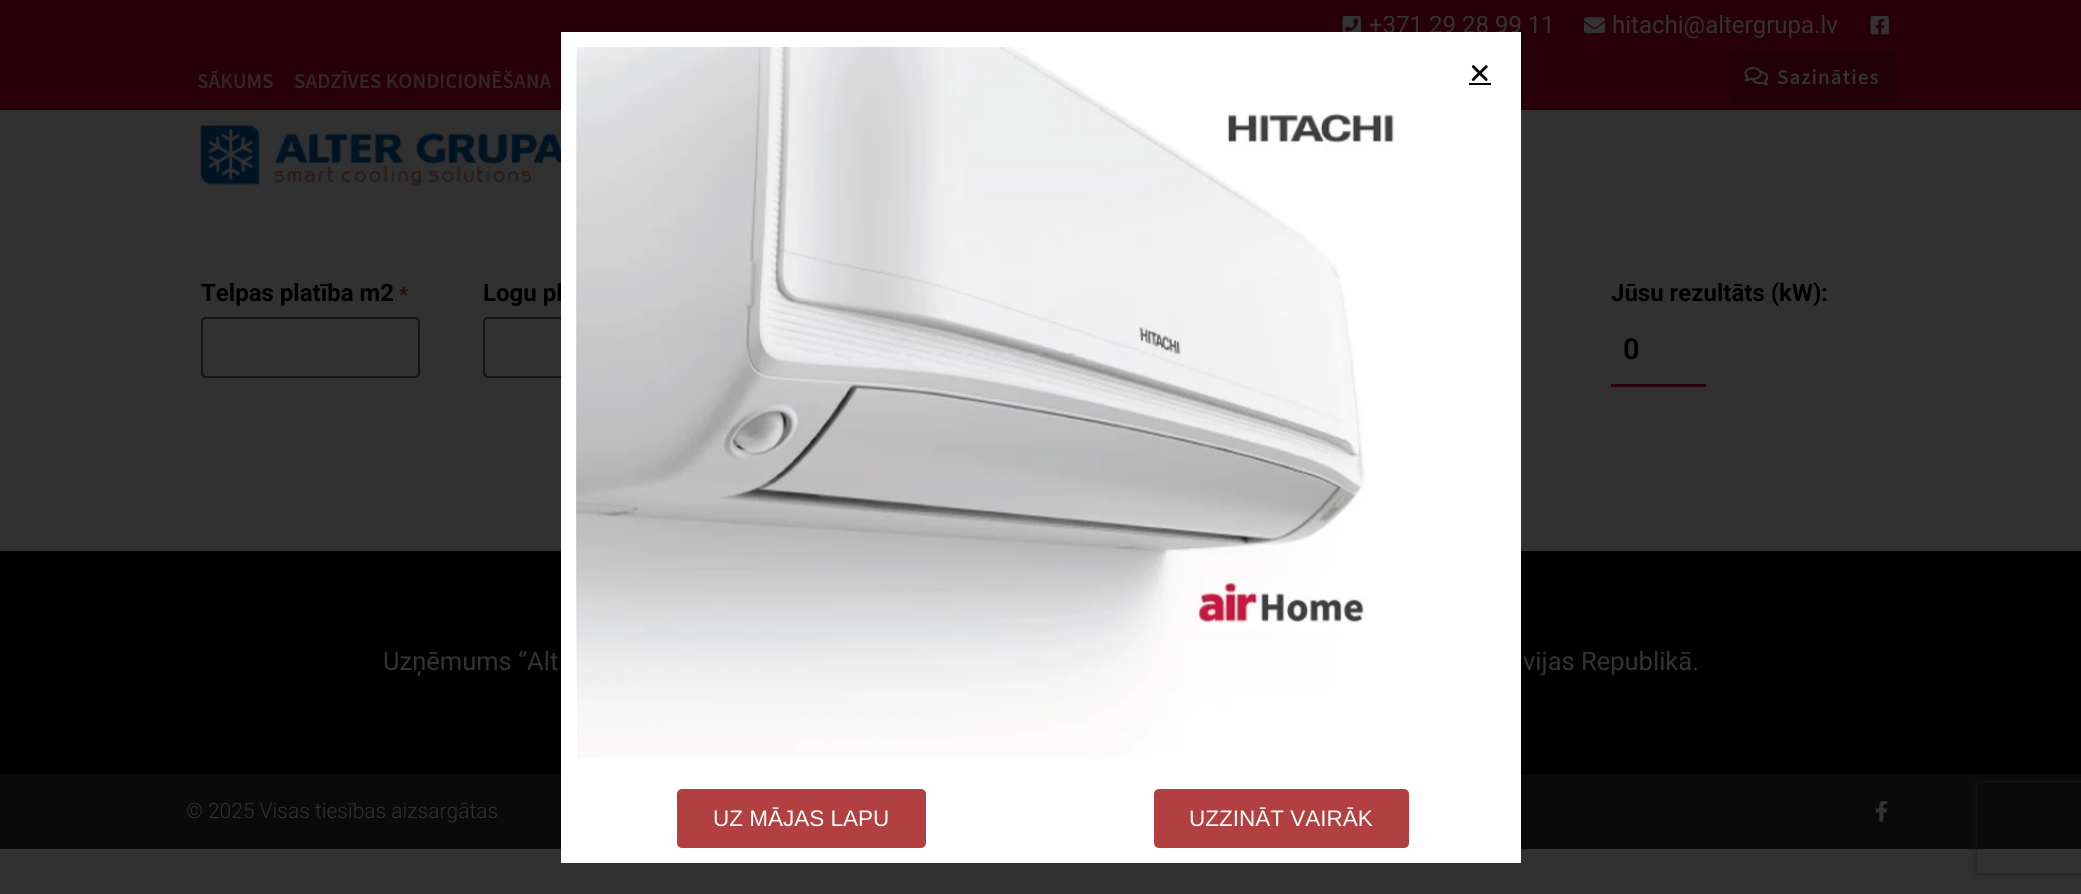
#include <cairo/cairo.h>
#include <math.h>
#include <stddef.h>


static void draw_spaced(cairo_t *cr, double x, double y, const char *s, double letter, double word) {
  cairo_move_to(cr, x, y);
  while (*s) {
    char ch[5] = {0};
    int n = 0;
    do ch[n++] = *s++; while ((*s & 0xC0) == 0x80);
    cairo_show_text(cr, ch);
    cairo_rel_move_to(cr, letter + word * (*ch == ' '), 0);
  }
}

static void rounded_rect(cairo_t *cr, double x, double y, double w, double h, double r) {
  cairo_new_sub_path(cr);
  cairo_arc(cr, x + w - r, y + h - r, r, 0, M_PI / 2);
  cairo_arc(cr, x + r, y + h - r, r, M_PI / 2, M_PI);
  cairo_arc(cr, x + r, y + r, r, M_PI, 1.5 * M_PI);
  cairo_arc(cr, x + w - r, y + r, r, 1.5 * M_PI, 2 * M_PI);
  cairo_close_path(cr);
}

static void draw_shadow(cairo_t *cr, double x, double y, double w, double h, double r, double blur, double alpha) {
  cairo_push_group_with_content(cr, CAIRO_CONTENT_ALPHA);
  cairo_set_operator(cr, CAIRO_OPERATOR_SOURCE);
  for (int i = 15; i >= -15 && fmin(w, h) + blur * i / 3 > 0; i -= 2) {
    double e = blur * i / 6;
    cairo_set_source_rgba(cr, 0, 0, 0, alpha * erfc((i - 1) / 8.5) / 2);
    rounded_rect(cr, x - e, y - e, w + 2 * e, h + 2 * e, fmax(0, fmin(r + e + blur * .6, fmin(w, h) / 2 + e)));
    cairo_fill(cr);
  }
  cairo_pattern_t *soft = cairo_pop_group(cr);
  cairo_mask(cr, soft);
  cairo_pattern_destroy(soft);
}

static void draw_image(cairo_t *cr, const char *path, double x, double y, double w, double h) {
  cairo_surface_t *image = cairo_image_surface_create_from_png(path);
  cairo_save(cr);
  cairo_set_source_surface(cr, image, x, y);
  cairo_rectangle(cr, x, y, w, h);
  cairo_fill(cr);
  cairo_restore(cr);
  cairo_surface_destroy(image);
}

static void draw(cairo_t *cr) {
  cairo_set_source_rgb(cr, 49 / 255.0, 49 / 255.0, 49 / 255.0);
  cairo_paint(cr);
  cairo_set_source_rgb(cr, 39 / 255.0, 0, 9 / 255.0);
  cairo_rectangle(cr, 0, 0, 2081, 110);
  cairo_fill(cr);
  draw_image(cr, "images/1.png", 1342, 15, 19, 17);
  draw_image(cr, "images/2.png", 1584, 17, 21, 16);
  draw_image(cr, "images/3.png", 1870, 15, 19, 20);
  cairo_set_source_rgb(cr, 33 / 255.0, 0, 8 / 255.0);
  rounded_rect(cr, 1730, 51, 166, 51, 5);
  cairo_fill(cr);
  draw_image(cr, "images/4.png", 1744, 66, 25, 20);
  draw_image(cr, "images/5.png", 200, 125, 361, 61);
  rounded_rect(cr, 202, 318, 217, 59, 4);
  cairo_set_source_rgb(cr, 20 / 255.0, 20 / 255.0, 20 / 255.0);
  cairo_stroke(cr);
  rounded_rect(cr, 484, 318, 217, 59, 4);
  cairo_stroke(cr);
  cairo_set_source_rgb(cr, 39 / 255.0, 0, 9 / 255.0);
  cairo_rectangle(cr, 1611, 384, 95, 3);
  cairo_fill(cr);
  cairo_set_source_rgb(cr, 0, 0, 0);
  cairo_rectangle(cr, 0, 551, 2081, 223);
  cairo_fill(cr);
  cairo_set_source_rgb(cr, 10 / 255.0, 10 / 255.0, 10 / 255.0);
  cairo_rectangle(cr, 0, 774, 2081, 75);
  cairo_fill(cr);
  draw_image(cr, "images/6.png", 1875, 801, 13, 21);
  cairo_save(cr);
  cairo_set_fill_rule(cr, CAIRO_FILL_RULE_EVEN_ODD);
  cairo_new_path(cr);
  cairo_move_to(cr, 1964, 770);
  cairo_line_to(cr, 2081, 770);
  cairo_line_to(cr, 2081, 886);
  cairo_line_to(cr, 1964, 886);
  cairo_close_path(cr);
  cairo_move_to(cr, 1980, 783);
  cairo_line_to(cr, 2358, 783);
  cairo_curve_to(cr, 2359.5, 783, 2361, 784.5, 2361, 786);
  cairo_line_to(cr, 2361, 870);
  cairo_curve_to(cr, 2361, 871.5, 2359.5, 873, 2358, 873);
  cairo_line_to(cr, 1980, 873);
  cairo_curve_to(cr, 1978.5, 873, 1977, 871.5, 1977, 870);
  cairo_line_to(cr, 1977, 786);
  cairo_curve_to(cr, 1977, 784.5, 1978.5, 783, 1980, 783);
  cairo_close_path(cr);
  cairo_clip(cr);
  cairo_set_source_rgb(cr, 26 / 255.0, 26 / 255.0, 26 / 255.0);
  draw_shadow(cr, 1977, 783, 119, 90, 3, 4, 1);
  cairo_restore(cr);
  cairo_select_font_face(cr, "Roboto", CAIRO_FONT_SLANT_NORMAL, CAIRO_FONT_WEIGHT_NORMAL);
  cairo_set_font_size(cr, 24);
  cairo_set_source_rgb(cr, 51 / 255.0, 51 / 255.0, 51 / 255.0);
  cairo_move_to(cr, 1369, 33);
  cairo_show_text(cr, "+371 29 28 99 11");
  cairo_move_to(cr, 1612, 33);
  cairo_show_text(cr, "hitachi@altergrupa.lv");
  cairo_select_font_face(cr, "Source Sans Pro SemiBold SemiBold", CAIRO_FONT_SLANT_NORMAL, CAIRO_FONT_WEIGHT_NORMAL);
  cairo_set_font_size(cr, 21);
  cairo_set_source_rgb(cr, 51 / 255.0, 38 / 255.0, 41 / 255.0);
  cairo_move_to(cr, 197, 88);
  cairo_show_text(cr, "SĀKUMS");
  cairo_move_to(cr, 294, 88);
  cairo_show_text(cr, "SADZĪVES KONDICIONĒŠANA");
  cairo_set_source_rgb(cr, 51 / 255.0, 51 / 255.0, 51 / 255.0);
  draw_spaced(cr, 1777, 84, "Sazināties", 1, 0);
  cairo_select_font_face(cr, "Roboto", CAIRO_FONT_SLANT_NORMAL, CAIRO_FONT_WEIGHT_BOLD);
  cairo_set_font_size(cr, 24);
  cairo_set_source_rgb(cr, 0, 0, 0);
  cairo_move_to(cr, 201, 301);
  cairo_show_text(cr, "Telpas platība m2");
  cairo_set_font_size(cr, 20);
  cairo_set_source_rgb(cr, 38 / 255.0, 9 / 255.0, 2 / 255.0);
  cairo_move_to(cr, 399, 301);
  cairo_show_text(cr, "*");
  cairo_set_font_size(cr, 24);
  cairo_set_source_rgb(cr, 0, 0, 0);
  cairo_move_to(cr, 483, 301);
  cairo_show_text(cr, "Logu pl");
  cairo_move_to(cr, 1611, 301);
  cairo_show_text(cr, "Jūsu rezultāts (kW):");
  cairo_select_font_face(cr, "Roboto SemiBold", CAIRO_FONT_SLANT_NORMAL, CAIRO_FONT_WEIGHT_NORMAL);
  cairo_set_font_size(cr, 29);
  cairo_move_to(cr, 1623, 359);
  cairo_show_text(cr, "0");
  cairo_select_font_face(cr, "Roboto", CAIRO_FONT_SLANT_NORMAL, CAIRO_FONT_WEIGHT_NORMAL);
  cairo_set_font_size(cr, 25.5);
  cairo_set_source_rgb(cr, 51 / 255.0, 51 / 255.0, 51 / 255.0);
  cairo_move_to(cr, 383, 670);
  cairo_show_text(cr, "Uzņēmums “Alt");
  cairo_move_to(cr, 1523, 670);
  cairo_show_text(cr, "vijas Republikā.");
  cairo_select_font_face(cr, "Roboto Light", CAIRO_FONT_SLANT_NORMAL, CAIRO_FONT_WEIGHT_NORMAL);
  cairo_set_font_size(cr, 21);
  cairo_move_to(cr, 186, 818);
  cairo_show_text(cr, "© 2025 Visas tiesības aizsargātas");
  cairo_set_source_rgb(cr, 1, 1, 1);
  cairo_rectangle(cr, 561, 32, 960, 831);
  cairo_fill(cr);
  draw_image(cr, "images/7.png", 1471, 65, 17, 16);
  cairo_set_source_rgb(cr, 0, 0, 0);
  cairo_rectangle(cr, 1469, 83, 22, 2);
  cairo_fill(cr);
  draw_image(cr, "images/8.png", 576, 47, 819, 712);
  cairo_set_source_rgb(cr, 178 / 255.0, 64 / 255.0, 64 / 255.0);
  rounded_rect(cr, 677, 789, 249, 59, 5);
  cairo_fill(cr);
  cairo_select_font_face(cr, "Liberation Sans", CAIRO_FONT_SLANT_NORMAL, CAIRO_FONT_WEIGHT_NORMAL);
  cairo_set_font_size(cr, 22.5);
  cairo_set_source_rgb(cr, 1, 1, 1);
  cairo_move_to(cr, 713, 826);
  cairo_show_text(cr, "UZ MĀJAS LAPU");
  cairo_set_source_rgb(cr, 178 / 255.0, 64 / 255.0, 64 / 255.0);
  rounded_rect(cr, 1154, 789, 255, 59, 5);
  cairo_fill(cr);
  cairo_set_source_rgb(cr, 1, 1, 1);
  cairo_move_to(cr, 1189, 826);
  cairo_show_text(cr, "UZZINĀT VAIRĀK");
}

int main(void) {
  cairo_surface_t *surface = cairo_image_surface_create(CAIRO_FORMAT_RGB24, 2081, 894);
  cairo_t *cr = cairo_create(surface);
  cairo_font_options_t *options = cairo_font_options_create();
  cairo_font_options_set_hint_metrics(options, CAIRO_HINT_METRICS_OFF);
  cairo_font_options_set_hint_style(options, CAIRO_HINT_STYLE_NONE);
  cairo_set_font_options(cr, options);
  cairo_set_miter_limit(cr, 4);
  draw(cr);
  cairo_surface_write_to_png(surface, "out.png");
  cairo_font_options_destroy(options);
  cairo_destroy(cr);
  cairo_surface_destroy(surface);
  return 0;
}
